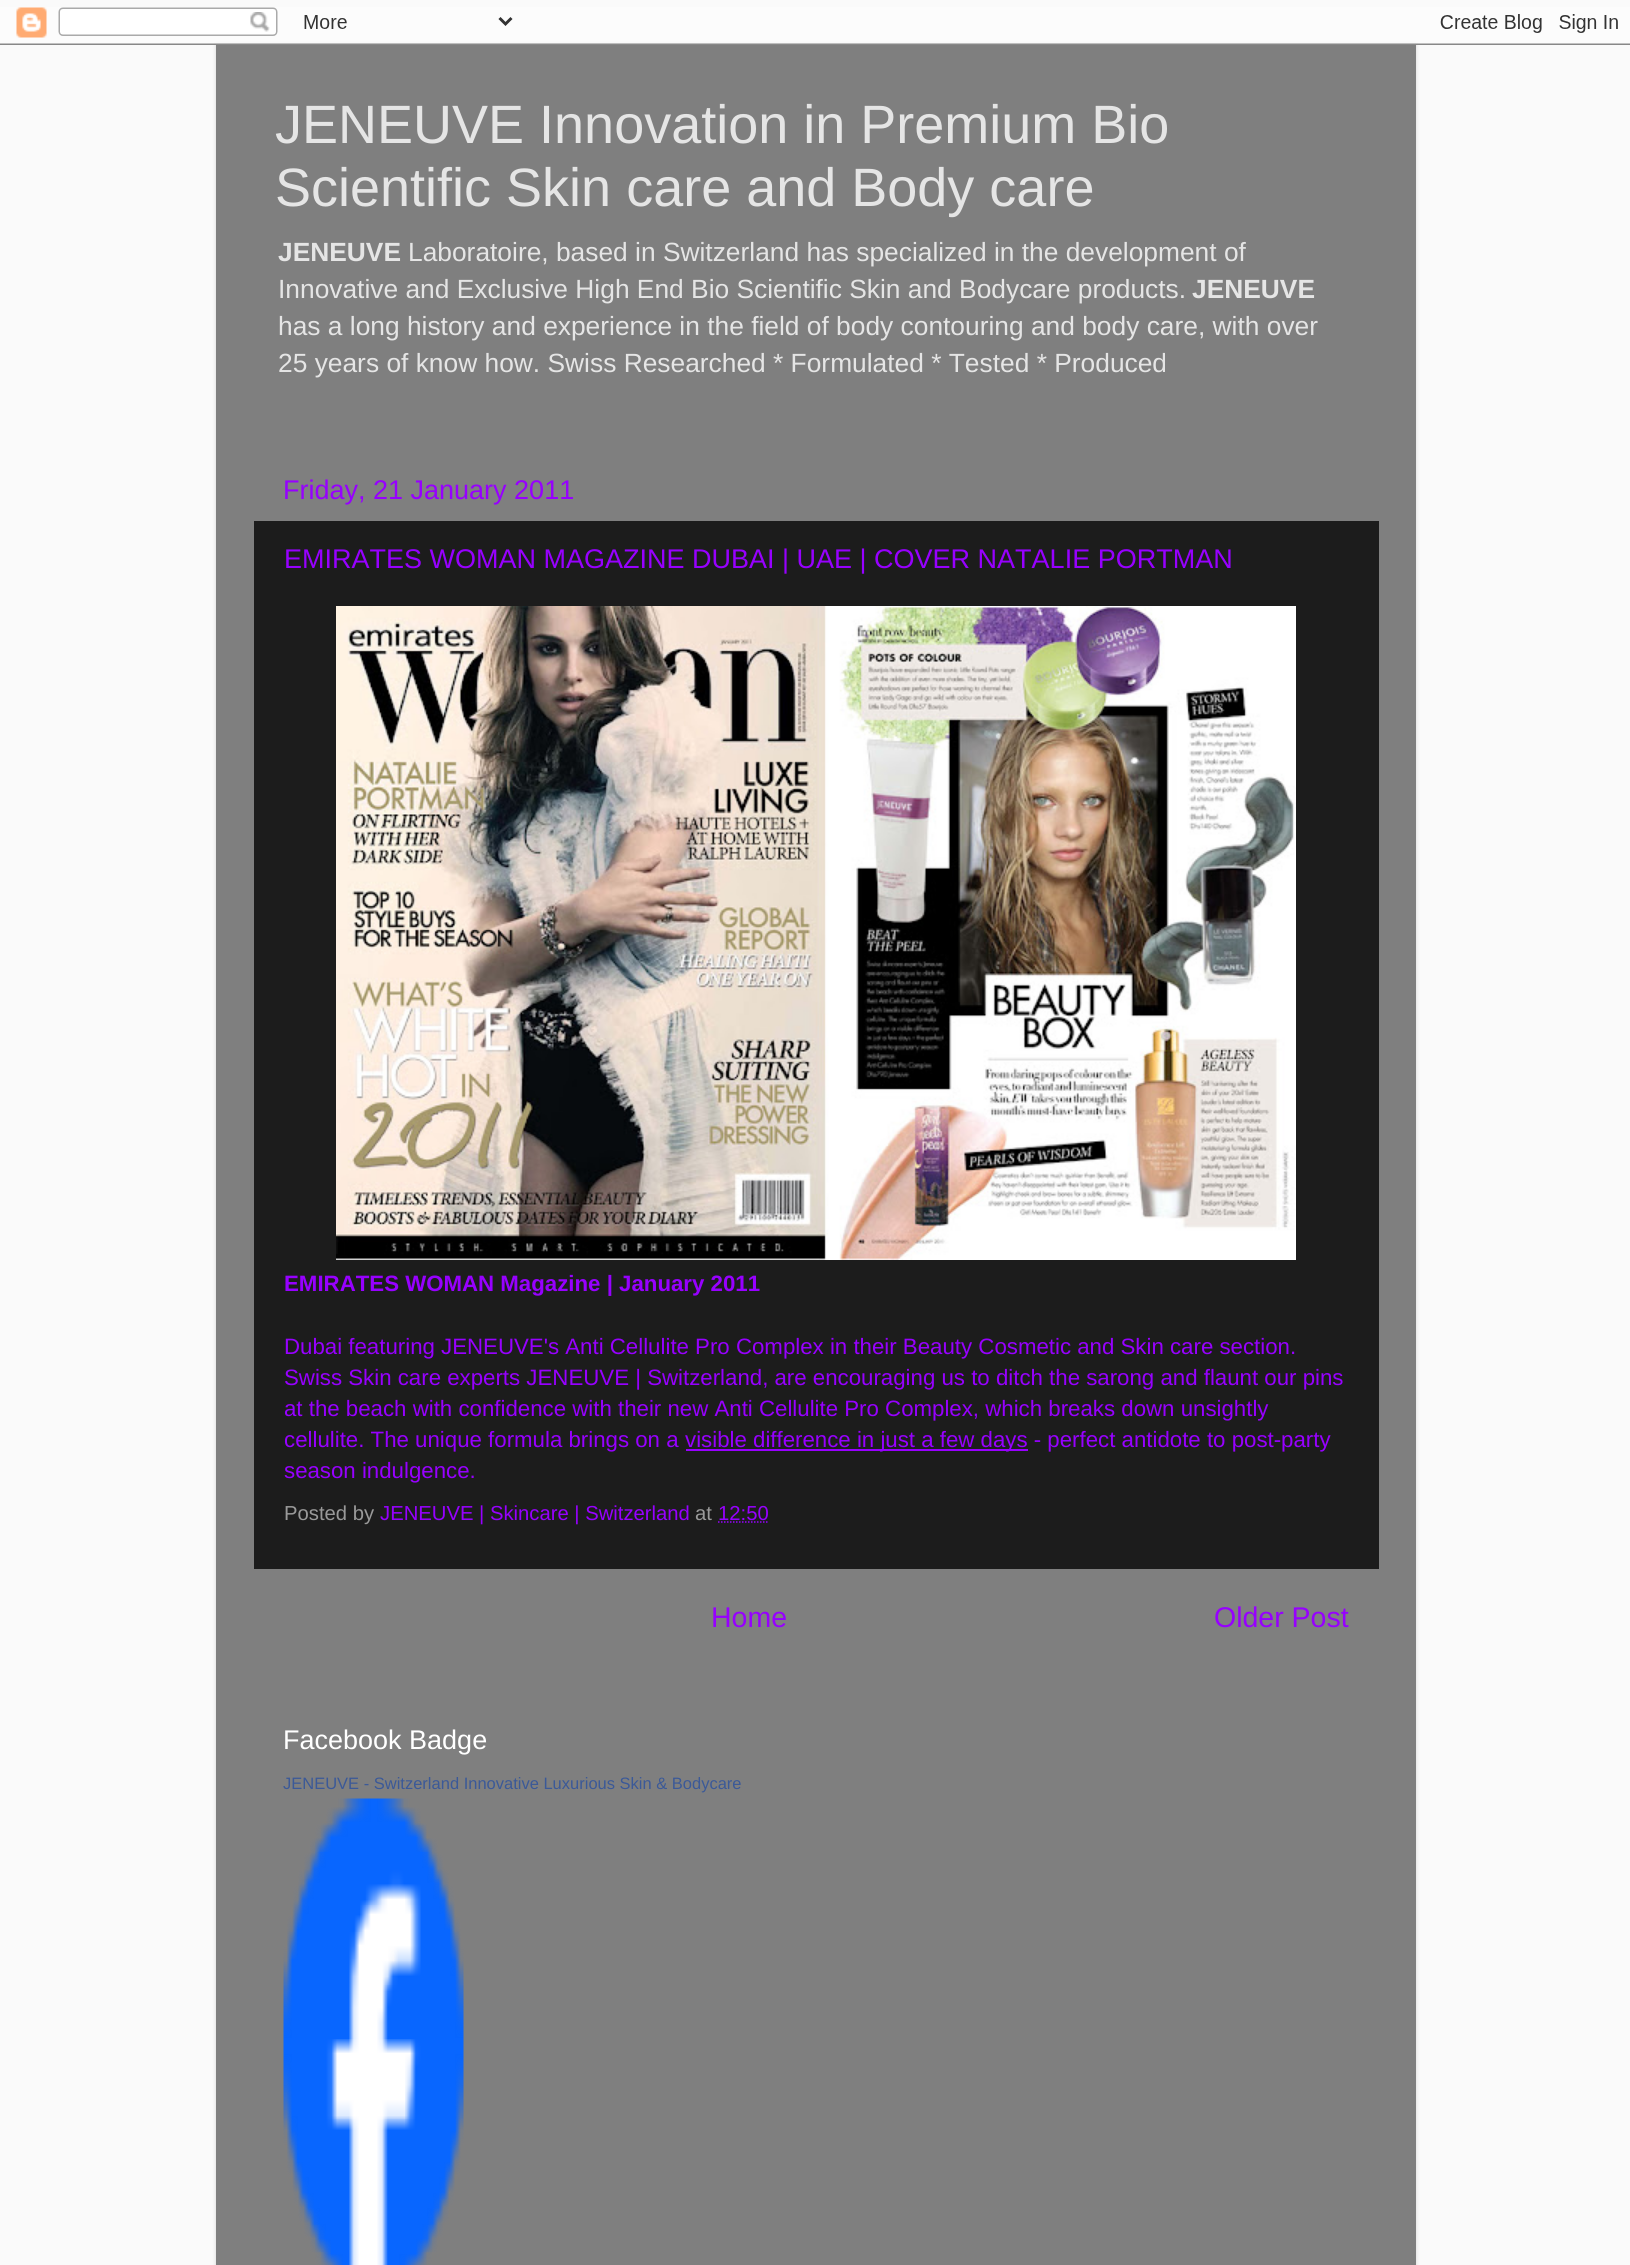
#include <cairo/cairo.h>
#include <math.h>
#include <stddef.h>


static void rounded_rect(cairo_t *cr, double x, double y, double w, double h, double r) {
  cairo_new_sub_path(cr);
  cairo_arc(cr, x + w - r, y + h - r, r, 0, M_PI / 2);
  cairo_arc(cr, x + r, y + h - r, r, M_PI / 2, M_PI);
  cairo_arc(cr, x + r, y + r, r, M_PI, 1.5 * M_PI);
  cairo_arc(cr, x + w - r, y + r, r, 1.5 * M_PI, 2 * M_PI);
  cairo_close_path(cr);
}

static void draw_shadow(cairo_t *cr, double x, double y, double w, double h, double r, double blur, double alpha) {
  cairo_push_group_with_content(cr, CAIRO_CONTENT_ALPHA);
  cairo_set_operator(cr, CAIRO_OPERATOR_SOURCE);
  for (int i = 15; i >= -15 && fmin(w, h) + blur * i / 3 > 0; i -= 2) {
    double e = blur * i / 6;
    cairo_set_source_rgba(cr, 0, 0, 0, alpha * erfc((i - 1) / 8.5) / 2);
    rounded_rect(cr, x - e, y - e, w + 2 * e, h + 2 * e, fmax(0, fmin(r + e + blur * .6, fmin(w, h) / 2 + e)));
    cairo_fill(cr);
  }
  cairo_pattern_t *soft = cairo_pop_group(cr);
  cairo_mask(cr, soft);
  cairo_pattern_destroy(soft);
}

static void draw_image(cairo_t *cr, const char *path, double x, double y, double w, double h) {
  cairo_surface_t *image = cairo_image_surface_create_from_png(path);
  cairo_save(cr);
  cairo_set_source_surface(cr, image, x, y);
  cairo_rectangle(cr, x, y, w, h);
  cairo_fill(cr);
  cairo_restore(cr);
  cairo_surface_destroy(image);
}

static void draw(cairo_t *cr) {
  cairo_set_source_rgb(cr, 250 / 255.0, 250 / 255.0, 250 / 255.0);
  cairo_paint(cr);
  cairo_set_source_rgb(cr, 0, 0, 0);
  draw_shadow(cr, 216, 45, 1200, 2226, 0, 2, 0.15);
  draw_image(cr, "images/1.png", 0, 7, 1630, 38);
  cairo_set_source_rgb(cr, 127 / 255.0, 127 / 255.0, 127 / 255.0);
  cairo_rectangle(cr, 216, 45, 1200, 2220);
  cairo_fill(cr);
  cairo_set_source_rgb(cr, 28 / 255.0, 28 / 255.0, 28 / 255.0);
  cairo_rectangle(cr, 254, 521, 1125, 1048);
  cairo_fill(cr);
  draw_image(cr, "images/2.png", 336, 606, 960, 654);
  cairo_set_source_rgb(cr, 152 / 255.0, 0, 1);
  cairo_rectangle(cr, 686, 1449, 342, 2);
  cairo_fill(cr);
  cairo_new_path(cr);
  cairo_move_to(cr, 718, 1522);
  cairo_line_to(cr, 768.5, 1522);
  cairo_set_source_rgb(cr, 151 / 255.0, 0, 1);
  cairo_set_line_width(cr, 1.5);
  cairo_set_dash(cr, (double[]){1.5, 1.5}, 2, 0);
  cairo_stroke(cr);
  draw_image(cr, "images/3.png", 283, 1798, 181, 467);
  cairo_select_font_face(cr, "Liberation Sans", CAIRO_FONT_SLANT_NORMAL, CAIRO_FONT_WEIGHT_NORMAL);
  cairo_set_font_size(cr, 54);
  cairo_set_source_rgb(cr, 229 / 255.0, 229 / 255.0, 229 / 255.0);
  cairo_move_to(cr, 275, 143);
  cairo_show_text(cr, "JENEUVE Innovation in Premium Bio");
  cairo_move_to(cr, 275, 206);
  cairo_show_text(cr, "Scientific Skin care and Body care");
  cairo_select_font_face(cr, "Liberation Sans", CAIRO_FONT_SLANT_NORMAL, CAIRO_FONT_WEIGHT_BOLD);
  cairo_set_font_size(cr, 26.35);
  cairo_move_to(cr, 278, 261);
  cairo_show_text(cr, "JENEUVE");
  cairo_select_font_face(cr, "Liberation Sans", CAIRO_FONT_SLANT_NORMAL, CAIRO_FONT_WEIGHT_NORMAL);
  cairo_move_to(cr, 408, 261);
  cairo_show_text(cr, "Laboratoire, based in Switzerland has specialized in the development of");
  cairo_move_to(cr, 278, 298);
  cairo_show_text(cr, "Innovative and Exclusive High End Bio Scientific Skin and Bodycare products.");
  cairo_select_font_face(cr, "Liberation Sans", CAIRO_FONT_SLANT_NORMAL, CAIRO_FONT_WEIGHT_BOLD);
  cairo_move_to(cr, 1192, 298);
  cairo_show_text(cr, "JENEUVE");
  cairo_select_font_face(cr, "Liberation Sans", CAIRO_FONT_SLANT_NORMAL, CAIRO_FONT_WEIGHT_NORMAL);
  cairo_move_to(cr, 278, 335);
  cairo_show_text(cr, "has a long history and experience in the field of body contouring and body care, with over");
  cairo_move_to(cr, 278, 372);
  cairo_show_text(cr, "25 years of know how. Swiss Researched * Formulated * Tested * Produced");
  cairo_set_font_size(cr, 27);
  cairo_set_source_rgb(cr, 151 / 255.0, 0, 1);
  cairo_move_to(cr, 283, 499);
  cairo_show_text(cr, "Friday, 21 January 2011");
  cairo_move_to(cr, 284, 568);
  cairo_show_text(cr, "EMIRATES WOMAN MAGAZINE DUBAI | UAE | COVER NATALIE PORTMAN");
  cairo_select_font_face(cr, "Liberation Sans", CAIRO_FONT_SLANT_NORMAL, CAIRO_FONT_WEIGHT_BOLD);
  cairo_set_font_size(cr, 22.25);
  cairo_move_to(cr, 284, 1291);
  cairo_show_text(cr, "EMIRATES WOMAN Magazine | January 2011");
  cairo_select_font_face(cr, "Liberation Sans", CAIRO_FONT_SLANT_NORMAL, CAIRO_FONT_WEIGHT_NORMAL);
  cairo_move_to(cr, 284, 1354);
  cairo_show_text(cr, "Dubai featuring JENEUVE's Anti Cellulite Pro Complex in their Beauty Cosmetic and Skin care section.");
  cairo_move_to(cr, 284, 1385);
  cairo_show_text(cr, "Swiss Skin care experts JENEUVE | Switzerland, are encouraging us to ditch the sarong and flaunt our pins");
  cairo_move_to(cr, 284, 1416);
  cairo_show_text(cr, "at the beach with confidence with their new Anti Cellulite Pro Complex, which breaks down unsightly");
  cairo_move_to(cr, 284, 1447);
  cairo_show_text(cr, "cellulite. The unique formula brings on a");
  cairo_move_to(cr, 685, 1447);
  cairo_show_text(cr, "visible difference in just a few days - perfect antidote to post-party");
  cairo_move_to(cr, 284, 1478);
  cairo_show_text(cr, "season indulgence.");
  cairo_set_font_size(cr, 20.25);
  cairo_set_source_rgb(cr, 153 / 255.0, 153 / 255.0, 153 / 255.0);
  cairo_move_to(cr, 284, 1520);
  cairo_show_text(cr, "Posted by");
  cairo_set_source_rgb(cr, 151 / 255.0, 0, 1);
  cairo_move_to(cr, 380, 1520);
  cairo_show_text(cr, "JENEUVE | Skincare | Switzerland");
  cairo_set_source_rgb(cr, 153 / 255.0, 153 / 255.0, 153 / 255.0);
  cairo_move_to(cr, 695, 1520);
  cairo_show_text(cr, "at");
  cairo_set_source_rgb(cr, 151 / 255.0, 0, 1);
  cairo_move_to(cr, 718, 1520);
  cairo_show_text(cr, "12:50");
  cairo_set_font_size(cr, 28.5);
  cairo_move_to(cr, 711, 1627);
  cairo_show_text(cr, "Home");
  cairo_move_to(cr, 1214, 1627);
  cairo_show_text(cr, "Older Post");
  cairo_set_font_size(cr, 27);
  cairo_set_source_rgb(cr, 1, 1, 1);
  cairo_move_to(cr, 283, 1749);
  cairo_show_text(cr, "Facebook Badge");
  cairo_set_font_size(cr, 16.5);
  cairo_set_source_rgb(cr, 59 / 255.0, 89 / 255.0, 152 / 255.0);
  cairo_move_to(cr, 283, 1789);
  cairo_show_text(cr, "JENEUVE - Switzerland Innovative Luxurious Skin & Bodycare");
}

int main(void) {
  cairo_surface_t *surface = cairo_image_surface_create(CAIRO_FORMAT_RGB24, 1630, 2265);
  cairo_t *cr = cairo_create(surface);
  cairo_font_options_t *options = cairo_font_options_create();
  cairo_font_options_set_hint_metrics(options, CAIRO_HINT_METRICS_OFF);
  cairo_font_options_set_hint_style(options, CAIRO_HINT_STYLE_NONE);
  cairo_set_font_options(cr, options);
  cairo_set_miter_limit(cr, 4);
  draw(cr);
  cairo_surface_write_to_png(surface, "out.png");
  cairo_font_options_destroy(options);
  cairo_destroy(cr);
  cairo_surface_destroy(surface);
  return 0;
}
